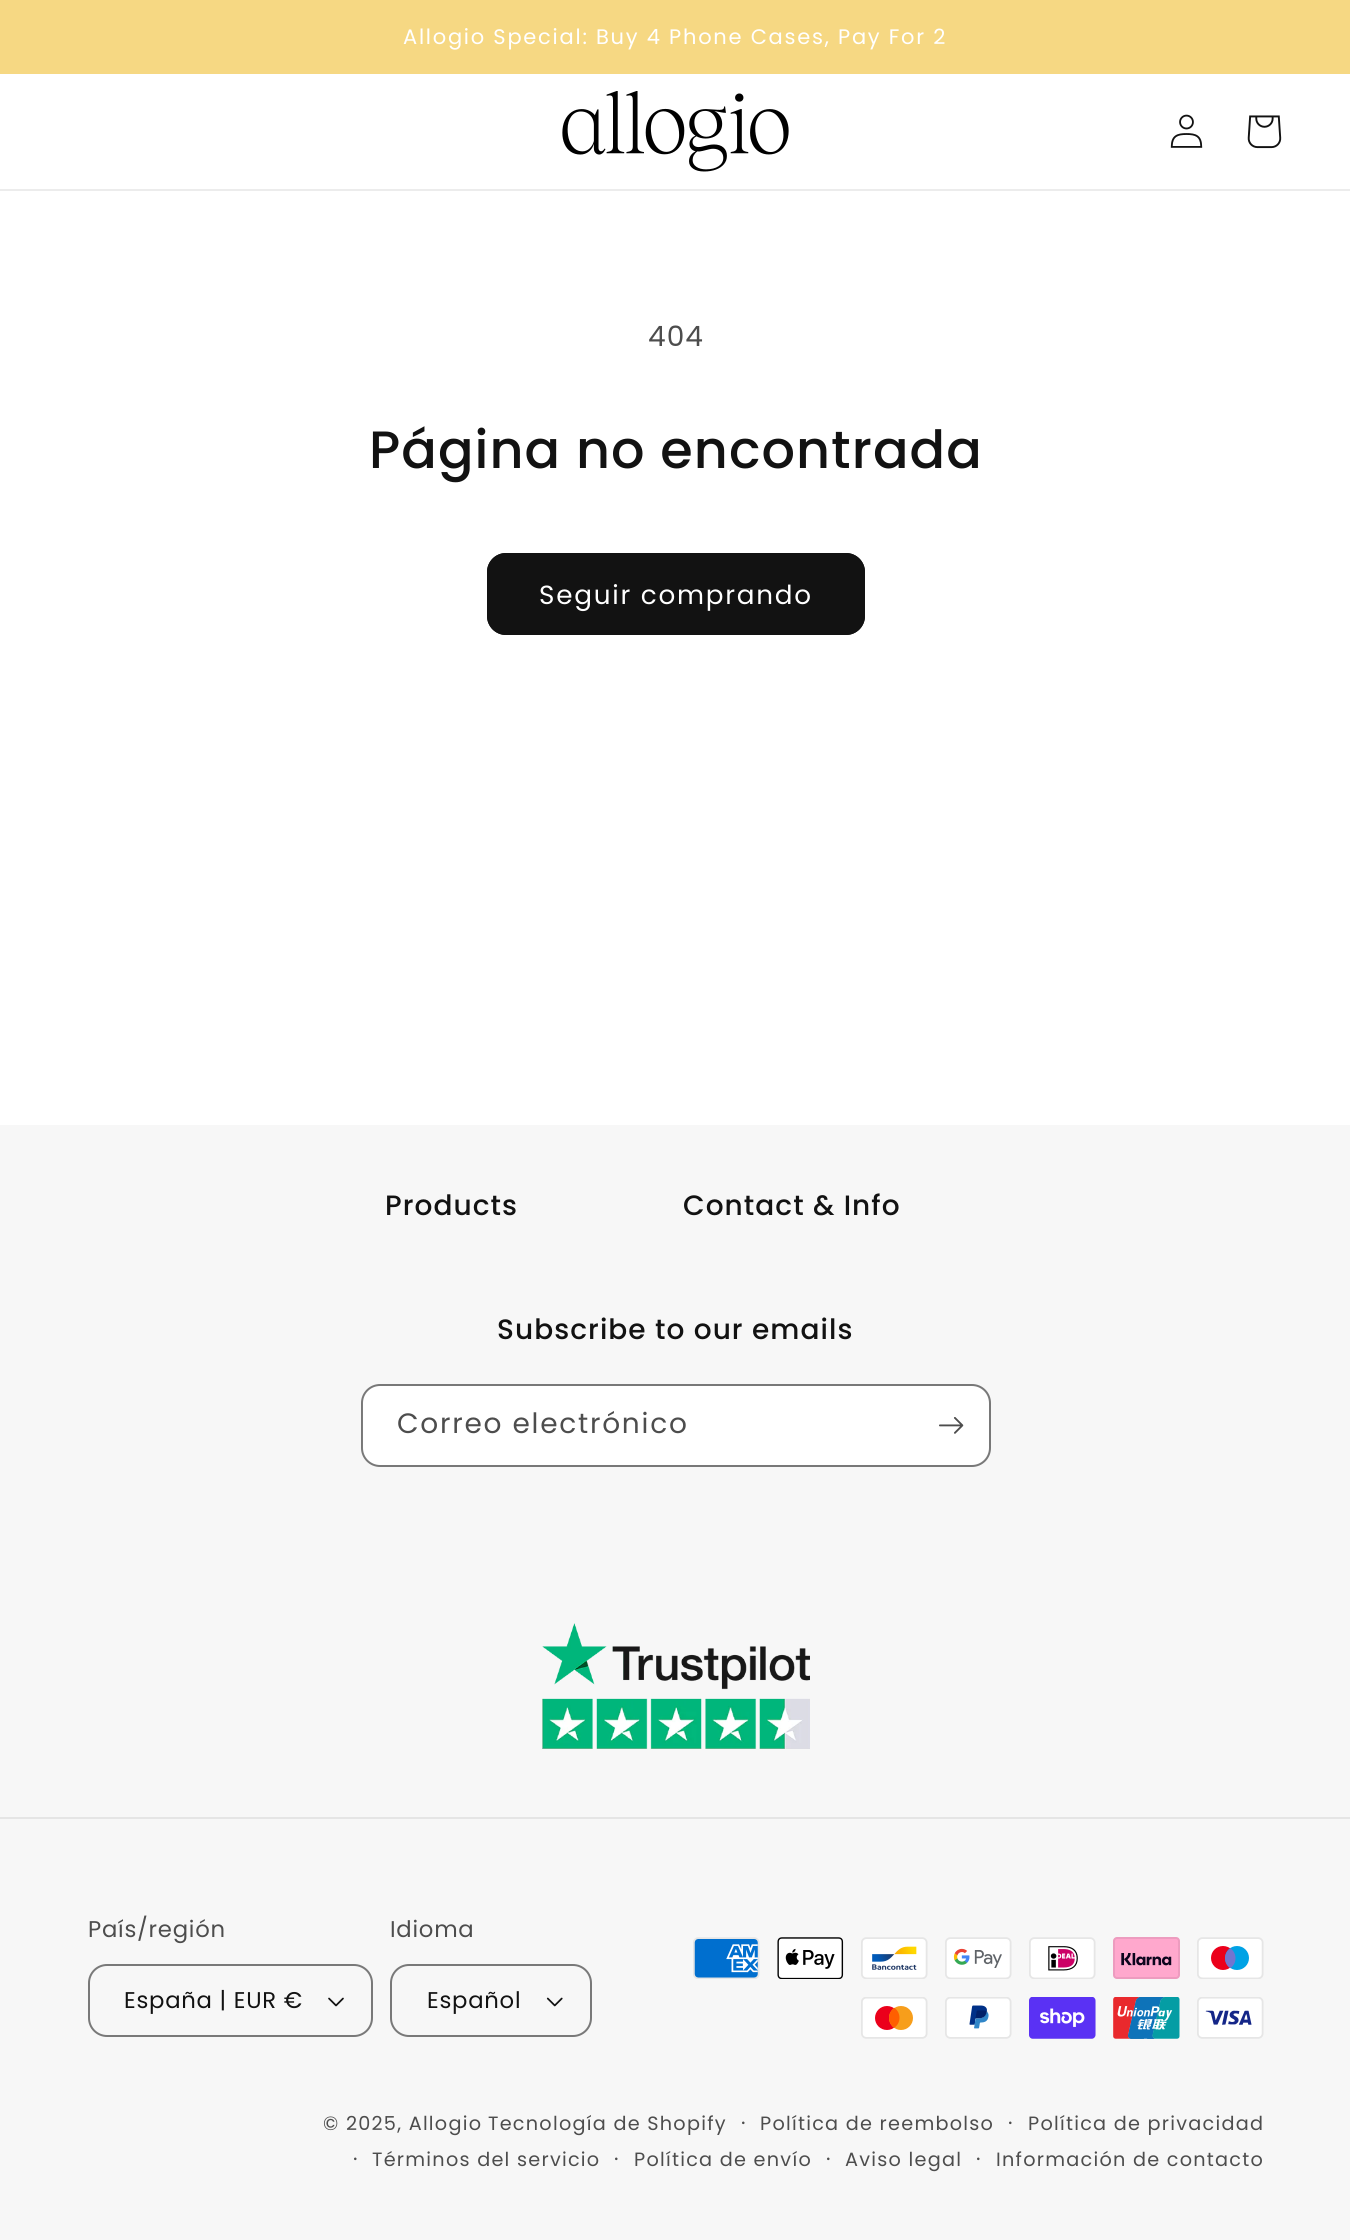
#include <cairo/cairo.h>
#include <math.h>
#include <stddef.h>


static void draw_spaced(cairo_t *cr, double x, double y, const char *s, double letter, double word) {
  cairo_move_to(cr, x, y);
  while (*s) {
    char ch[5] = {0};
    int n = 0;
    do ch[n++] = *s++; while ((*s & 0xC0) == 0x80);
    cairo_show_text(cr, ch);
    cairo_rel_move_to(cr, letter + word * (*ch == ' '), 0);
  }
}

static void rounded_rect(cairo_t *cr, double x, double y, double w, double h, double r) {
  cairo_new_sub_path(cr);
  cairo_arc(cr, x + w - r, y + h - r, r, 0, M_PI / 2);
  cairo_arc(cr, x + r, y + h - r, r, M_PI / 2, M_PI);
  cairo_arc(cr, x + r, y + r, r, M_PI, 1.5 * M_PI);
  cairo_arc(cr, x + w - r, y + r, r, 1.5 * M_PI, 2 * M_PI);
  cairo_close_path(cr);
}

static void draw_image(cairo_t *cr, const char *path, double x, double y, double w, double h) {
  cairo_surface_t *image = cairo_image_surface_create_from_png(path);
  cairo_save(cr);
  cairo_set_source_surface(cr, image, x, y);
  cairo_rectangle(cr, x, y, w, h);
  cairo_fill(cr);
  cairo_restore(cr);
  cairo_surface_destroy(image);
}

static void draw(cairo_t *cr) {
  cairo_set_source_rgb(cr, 1, 1, 1);
  cairo_paint(cr);
  cairo_set_source_rgb(cr, 246 / 255.0, 216 / 255.0, 131 / 255.0);
  cairo_rectangle(cr, 0, 0, 1350, 74);
  cairo_fill(cr);
  cairo_set_source_rgb(cr, 236 / 255.0, 236 / 255.0, 236 / 255.0);
  cairo_rectangle(cr, 0, 189, 1350, 2);
  cairo_fill(cr);
  draw_image(cr, "images/1.png", 562, 91, 227, 81);
  draw_image(cr, "images/2.png", 1170, 114, 33, 34);
  draw_image(cr, "images/3.png", 1247, 115, 35, 34);
  cairo_set_source_rgb(cr, 18 / 255.0, 18 / 255.0, 18 / 255.0);
  rounded_rect(cr, 487, 553, 378, 82, 19);
  cairo_fill(cr);
  rounded_rect(cr, 488, 554, 376, 80, 18);
  cairo_stroke(cr);
  cairo_set_source_rgb(cr, 247 / 255.0, 247 / 255.0, 247 / 255.0);
  cairo_rectangle(cr, 0, 1125, 1350, 1115);
  cairo_fill(cr);
  cairo_set_source_rgb(cr, 1, 1, 1);
  rounded_rect(cr, 362, 1386, 627, 79, 18);
  cairo_fill(cr);
  rounded_rect(cr, 362, 1385, 628, 81, 18);
  cairo_set_source_rgba(cr, 18 / 255.0, 18 / 255.0, 18 / 255.0, 0.55);
  cairo_stroke(cr);
  draw_image(cr, "images/4.png", 939, 1417, 25, 17);
  draw_image(cr, "images/5.png", 542, 1623, 268, 126);
  cairo_set_source_rgb(cr, 229 / 255.0, 229 / 255.0, 229 / 255.0);
  cairo_rectangle(cr, 0, 1817, 1350, 2);
  cairo_fill(cr);
  draw_image(cr, "images/6.png", 328, 1997, 16, 10);
  rounded_rect(cr, 89, 1965, 283, 71, 18);
  cairo_set_source_rgb(cr, 121 / 255.0, 121 / 255.0, 121 / 255.0);
  cairo_stroke(cr);
  draw_image(cr, "images/7.png", 546, 1997, 17, 10);
  rounded_rect(cr, 391, 1965, 200, 71, 18);
  cairo_stroke(cr);
  draw_image(cr, "images/8.png", 693, 1937, 67, 42);
  draw_image(cr, "images/9.png", 777, 1937, 67, 42);
  draw_image(cr, "images/10.png", 861, 1937, 67, 42);
  draw_image(cr, "images/11.png", 945, 1937, 67, 42);
  draw_image(cr, "images/12.png", 1029, 1937, 67, 42);
  draw_image(cr, "images/13.png", 1113, 1937, 67, 42);
  draw_image(cr, "images/14.png", 1197, 1937, 67, 42);
  draw_image(cr, "images/15.png", 861, 1997, 67, 42);
  draw_image(cr, "images/16.png", 945, 1997, 67, 42);
  draw_image(cr, "images/17.png", 1029, 1997, 67, 42);
  draw_image(cr, "images/18.png", 1113, 1997, 67, 42);
  draw_image(cr, "images/19.png", 1197, 1997, 67, 42);
  cairo_select_font_face(cr, "Poppins", CAIRO_FONT_SLANT_NORMAL, CAIRO_FONT_WEIGHT_NORMAL);
  cairo_set_font_size(cr, 21);
  cairo_set_source_rgb(cr, 1, 1, 1);
  draw_spaced(cr, 403, 44, "Allogio Special: Buy 4 Phone Cases, Pay For 2", 1.75, 0);
  cairo_set_font_size(cr, 28);
  cairo_set_source_rgb(cr, 77 / 255.0, 77 / 255.0, 77 / 255.0);
  draw_spaced(cr, 648, 346, "404", 1.05, 0);
  cairo_select_font_face(cr, "Poppins Medium", CAIRO_FONT_SLANT_NORMAL, CAIRO_FONT_WEIGHT_NORMAL);
  cairo_set_font_size(cr, 52.5);
  cairo_set_source_rgb(cr, 18 / 255.0, 18 / 255.0, 18 / 255.0);
  draw_spaced(cr, 369, 468, "Página no encontrada", 1.05, 0);
  cairo_select_font_face(cr, "Poppins", CAIRO_FONT_SLANT_NORMAL, CAIRO_FONT_WEIGHT_NORMAL);
  cairo_set_font_size(cr, 26.25);
  cairo_set_source_rgb(cr, 1, 1, 1);
  draw_spaced(cr, 539, 604, "Seguir comprando", 1.75, 0);
  cairo_select_font_face(cr, "Poppins Medium", CAIRO_FONT_SLANT_NORMAL, CAIRO_FONT_WEIGHT_NORMAL);
  cairo_set_font_size(cr, 28);
  cairo_set_source_rgb(cr, 18 / 255.0, 18 / 255.0, 18 / 255.0);
  draw_spaced(cr, 385, 1215, "Products", 1.05, 0);
  draw_spaced(cr, 683, 1215, "Contact & Info", 1.05, 0);
  draw_spaced(cr, 497, 1339, "Subscribe to our emails", 1.05, 0);
  cairo_select_font_face(cr, "Poppins", CAIRO_FONT_SLANT_NORMAL, CAIRO_FONT_WEIGHT_NORMAL);
  cairo_set_source_rgb(cr, 77 / 255.0, 77 / 255.0, 77 / 255.0);
  draw_spaced(cr, 397, 1433, "Correo electrónico", 1.75, 0);
  cairo_set_font_size(cr, 22.75);
  draw_spaced(cr, 88, 1937, "País/región", 0.75, 0);
  cairo_set_source_rgb(cr, 18 / 255.0, 18 / 255.0, 18 / 255.0);
  draw_spaced(cr, 124, 2008, "España | EUR €", 0.75, 0);
  cairo_set_source_rgb(cr, 77 / 255.0, 77 / 255.0, 77 / 255.0);
  draw_spaced(cr, 390, 1937, "Idioma", 0.75, 0);
  cairo_set_source_rgb(cr, 18 / 255.0, 18 / 255.0, 18 / 255.0);
  draw_spaced(cr, 427, 2008, "Español", 0.75, 0);
  cairo_set_font_size(cr, 21);
  cairo_set_source_rgb(cr, 77 / 255.0, 77 / 255.0, 77 / 255.0);
  draw_spaced(cr, 741, 2130, "·", 1.25, 0);
  cairo_set_font_size(cr, 19.25);
  draw_spaced(cr, 760, 2130, "Política de reembolso", 1.25, 0);
  cairo_set_font_size(cr, 21);
  draw_spaced(cr, 1008, 2130, "·", 1.25, 0);
  cairo_set_font_size(cr, 19.25);
  draw_spaced(cr, 1028, 2130, "Política de privacidad", 1.25, 0);
  cairo_set_font_size(cr, 21);
  draw_spaced(cr, 353, 2166, "·", 1.25, 0);
  cairo_set_font_size(cr, 19.25);
  draw_spaced(cr, 372, 2166, "Términos del servicio", 1.25, 0);
  cairo_set_font_size(cr, 21);
  draw_spaced(cr, 614, 2166, "·", 1.25, 0);
  cairo_set_font_size(cr, 19.25);
  draw_spaced(cr, 634, 2166, "Política de envío", 1.25, 0);
  cairo_set_font_size(cr, 21);
  draw_spaced(cr, 826, 2166, "·", 1.25, 0);
  cairo_set_font_size(cr, 19.25);
  draw_spaced(cr, 845, 2166, "Aviso legal", 1.25, 0);
  cairo_set_font_size(cr, 21);
  draw_spaced(cr, 976, 2166, "·", 1.25, 0);
  cairo_set_font_size(cr, 19.25);
  draw_spaced(cr, 996, 2166, "Información de contacto", 1.25, 0);
  draw_spaced(cr, 323, 2130, "© 2025, Allogio", 1.25, 0);
  draw_spaced(cr, 488, 2130, "Tecnología de Shopify", 1.25, 0);
}

int main(void) {
  cairo_surface_t *surface = cairo_image_surface_create(CAIRO_FORMAT_RGB24, 1350, 2240);
  cairo_t *cr = cairo_create(surface);
  cairo_font_options_t *options = cairo_font_options_create();
  cairo_font_options_set_hint_metrics(options, CAIRO_HINT_METRICS_OFF);
  cairo_font_options_set_hint_style(options, CAIRO_HINT_STYLE_NONE);
  cairo_set_font_options(cr, options);
  cairo_set_miter_limit(cr, 4);
  draw(cr);
  cairo_surface_write_to_png(surface, "out.png");
  cairo_font_options_destroy(options);
  cairo_destroy(cr);
  cairo_surface_destroy(surface);
  return 0;
}
